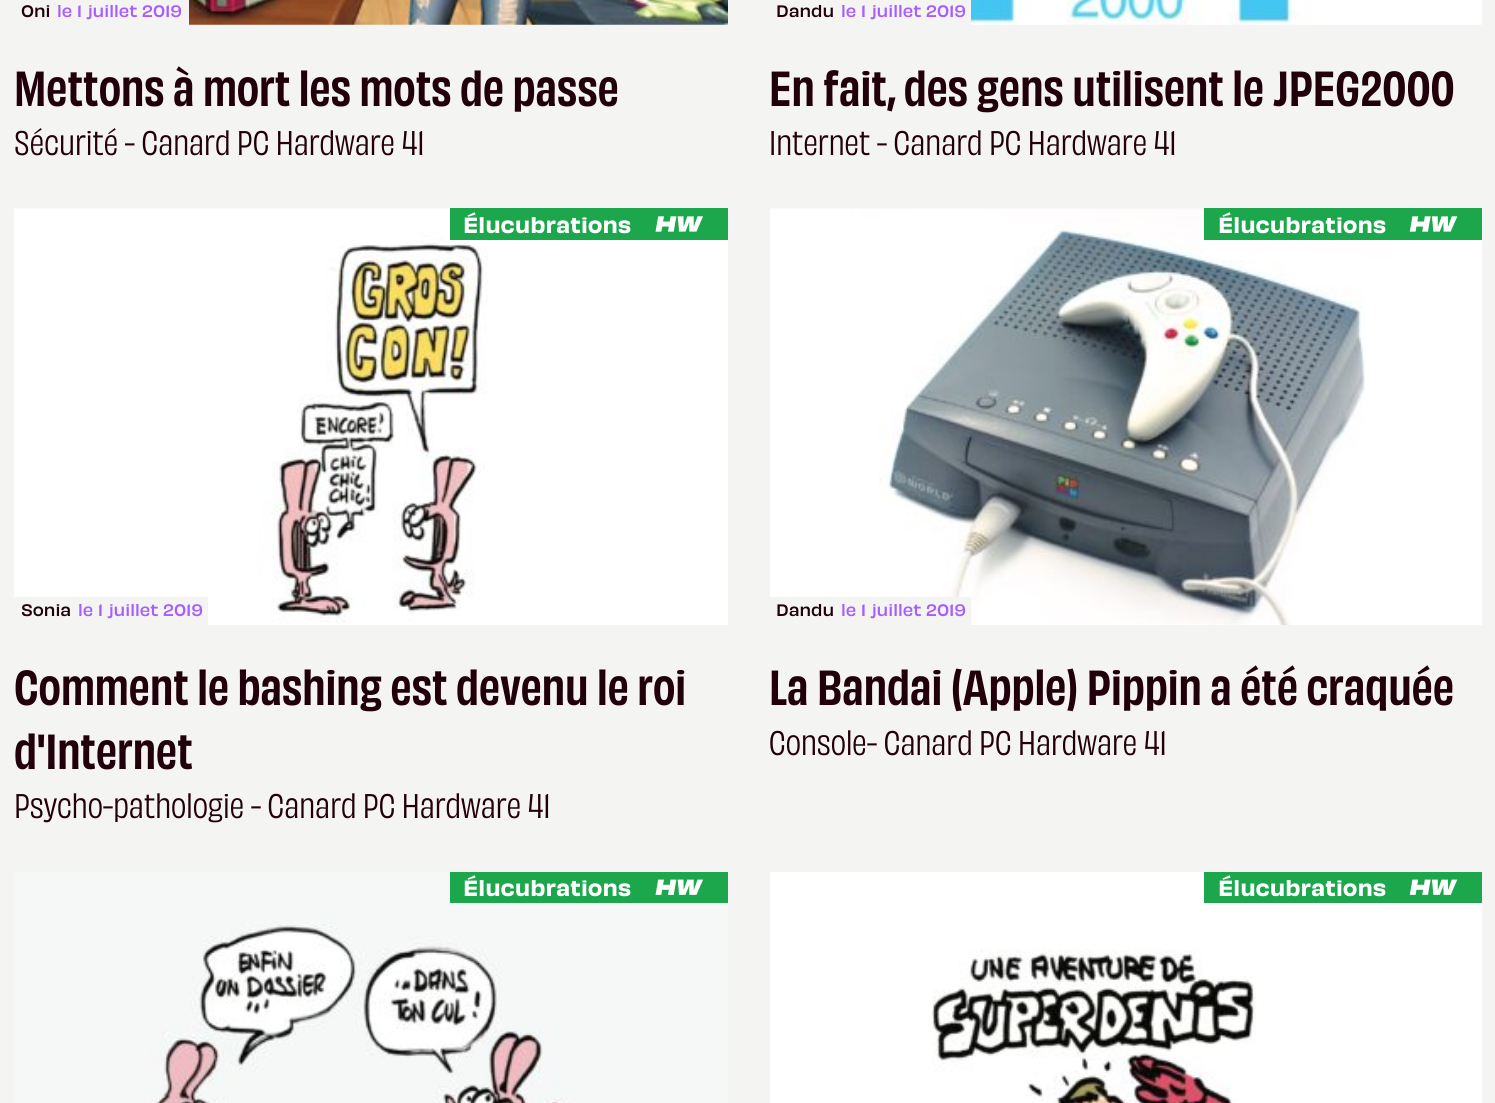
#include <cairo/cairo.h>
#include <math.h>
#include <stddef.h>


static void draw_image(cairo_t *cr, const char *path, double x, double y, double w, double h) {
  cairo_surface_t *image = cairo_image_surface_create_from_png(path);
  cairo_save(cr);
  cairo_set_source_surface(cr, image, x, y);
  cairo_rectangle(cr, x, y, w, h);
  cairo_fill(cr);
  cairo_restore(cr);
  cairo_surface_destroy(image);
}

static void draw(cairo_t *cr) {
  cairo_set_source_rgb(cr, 244 / 255.0, 244 / 255.0, 242 / 255.0);
  cairo_paint(cr);
  draw_image(cr, "images/1.png", 189, 0, 539, 25);
  draw_image(cr, "images/2.png", 971, 0, 511, 25);
  draw_image(cr, "images/3.png", 14, 208, 714, 417);
  cairo_set_source_rgb(cr, 28 / 255.0, 167 / 255.0, 76 / 255.0);
  cairo_rectangle(cr, 450, 208, 278, 32);
  cairo_fill(cr);
  draw_image(cr, "images/4.png", 655, 216, 48, 16);
  cairo_set_source_rgb(cr, 244 / 255.0, 244 / 255.0, 242 / 255.0);
  cairo_rectangle(cr, 14, 597, 194, 28);
  cairo_fill(cr);
  draw_image(cr, "images/5.png", 770, 208, 712, 417);
  cairo_set_source_rgb(cr, 28 / 255.0, 167 / 255.0, 76 / 255.0);
  cairo_rectangle(cr, 1204, 208, 278, 32);
  cairo_fill(cr);
  draw_image(cr, "images/6.png", 1409, 216, 49, 16);
  cairo_set_source_rgb(cr, 244 / 255.0, 244 / 255.0, 242 / 255.0);
  cairo_rectangle(cr, 770, 597, 201, 28);
  cairo_fill(cr);
  draw_image(cr, "images/7.png", 14, 872, 714, 231);
  cairo_set_source_rgb(cr, 28 / 255.0, 167 / 255.0, 76 / 255.0);
  cairo_rectangle(cr, 450, 872, 278, 31);
  cairo_fill(cr);
  draw_image(cr, "images/8.png", 655, 879, 48, 16);
  draw_image(cr, "images/9.png", 770, 872, 712, 231);
  cairo_rectangle(cr, 1204, 872, 278, 31);
  cairo_fill(cr);
  draw_image(cr, "images/10.png", 1409, 879, 49, 16);
  cairo_select_font_face(cr, "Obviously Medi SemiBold", CAIRO_FONT_SLANT_NORMAL, CAIRO_FONT_WEIGHT_NORMAL);
  cairo_set_font_size(cr, 15.5);
  cairo_set_source_rgb(cr, 33 / 255.0, 0, 11 / 255.0);
  cairo_move_to(cr, 21, 17);
  cairo_show_text(cr, "Oni");
  cairo_set_source_rgb(cr, 165 / 255.0, 95 / 255.0, 1);
  cairo_move_to(cr, 57, 17);
  cairo_show_text(cr, "le 1 juillet 2019");
  cairo_select_font_face(cr, "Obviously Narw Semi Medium", CAIRO_FONT_SLANT_NORMAL, CAIRO_FONT_WEIGHT_NORMAL);
  cairo_set_font_size(cr, 45.9);
  cairo_set_source_rgb(cr, 33 / 255.0, 0, 11 / 255.0);
  cairo_move_to(cr, 14, 106);
  cairo_show_text(cr, "Mettons à mort les mots de passe");
  cairo_select_font_face(cr, "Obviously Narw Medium", CAIRO_FONT_SLANT_NORMAL, CAIRO_FONT_WEIGHT_NORMAL);
  cairo_set_font_size(cr, 31.9);
  cairo_move_to(cr, 14, 155);
  cairo_show_text(cr, "Sécurité - Canard PC Hardware 41");
  cairo_select_font_face(cr, "Obviously Medi SemiBold", CAIRO_FONT_SLANT_NORMAL, CAIRO_FONT_WEIGHT_NORMAL);
  cairo_set_font_size(cr, 15.5);
  cairo_move_to(cr, 776, 17);
  cairo_show_text(cr, "Dandu");
  cairo_set_source_rgb(cr, 165 / 255.0, 95 / 255.0, 1);
  cairo_move_to(cr, 841, 17);
  cairo_show_text(cr, "le 1 juillet 2019");
  cairo_select_font_face(cr, "Obviously Narw Semi Medium", CAIRO_FONT_SLANT_NORMAL, CAIRO_FONT_WEIGHT_NORMAL);
  cairo_set_font_size(cr, 45.9);
  cairo_set_source_rgb(cr, 33 / 255.0, 0, 11 / 255.0);
  cairo_move_to(cr, 769, 106);
  cairo_show_text(cr, "En fait, des gens utilisent le JPEG2000");
  cairo_select_font_face(cr, "Obviously Narw Medium", CAIRO_FONT_SLANT_NORMAL, CAIRO_FONT_WEIGHT_NORMAL);
  cairo_set_font_size(cr, 31.9);
  cairo_move_to(cr, 769, 155);
  cairo_show_text(cr, "Internet - Canard PC Hardware 41");
  cairo_select_font_face(cr, "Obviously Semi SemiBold", CAIRO_FONT_SLANT_NORMAL, CAIRO_FONT_WEIGHT_NORMAL);
  cairo_set_font_size(cr, 20.5);
  cairo_set_source_rgb(cr, 1, 1, 1);
  cairo_move_to(cr, 463, 233);
  cairo_show_text(cr, "Élucubrations");
  cairo_select_font_face(cr, "Obviously Medi SemiBold", CAIRO_FONT_SLANT_NORMAL, CAIRO_FONT_WEIGHT_NORMAL);
  cairo_set_font_size(cr, 15.5);
  cairo_set_source_rgb(cr, 33 / 255.0, 0, 11 / 255.0);
  cairo_move_to(cr, 21, 616);
  cairo_show_text(cr, "Sonia");
  cairo_set_source_rgb(cr, 165 / 255.0, 95 / 255.0, 1);
  cairo_move_to(cr, 78, 616);
  cairo_show_text(cr, "le 1 juillet 2019");
  cairo_select_font_face(cr, "Obviously Narw Semi Medium", CAIRO_FONT_SLANT_NORMAL, CAIRO_FONT_WEIGHT_NORMAL);
  cairo_set_font_size(cr, 45.9);
  cairo_set_source_rgb(cr, 33 / 255.0, 0, 11 / 255.0);
  cairo_move_to(cr, 14, 705);
  cairo_show_text(cr, "Comment le bashing est devenu le roi");
  cairo_move_to(cr, 14, 769);
  cairo_show_text(cr, "d'Internet");
  cairo_select_font_face(cr, "Obviously Narw Medium", CAIRO_FONT_SLANT_NORMAL, CAIRO_FONT_WEIGHT_NORMAL);
  cairo_set_font_size(cr, 31.9);
  cairo_move_to(cr, 14, 818);
  cairo_show_text(cr, "Psycho-pathologie - Canard PC Hardware 41");
  cairo_select_font_face(cr, "Obviously Semi SemiBold", CAIRO_FONT_SLANT_NORMAL, CAIRO_FONT_WEIGHT_NORMAL);
  cairo_set_font_size(cr, 20.5);
  cairo_set_source_rgb(cr, 1, 1, 1);
  cairo_move_to(cr, 1218, 233);
  cairo_show_text(cr, "Élucubrations");
  cairo_select_font_face(cr, "Obviously Medi SemiBold", CAIRO_FONT_SLANT_NORMAL, CAIRO_FONT_WEIGHT_NORMAL);
  cairo_set_font_size(cr, 15.5);
  cairo_set_source_rgb(cr, 33 / 255.0, 0, 11 / 255.0);
  cairo_move_to(cr, 776, 616);
  cairo_show_text(cr, "Dandu");
  cairo_set_source_rgb(cr, 165 / 255.0, 95 / 255.0, 1);
  cairo_move_to(cr, 841, 616);
  cairo_show_text(cr, "le 1 juillet 2019");
  cairo_select_font_face(cr, "Obviously Narw Semi Medium", CAIRO_FONT_SLANT_NORMAL, CAIRO_FONT_WEIGHT_NORMAL);
  cairo_set_font_size(cr, 45.9);
  cairo_set_source_rgb(cr, 33 / 255.0, 0, 11 / 255.0);
  cairo_move_to(cr, 769, 705);
  cairo_show_text(cr, "La Bandai (Apple) Pippin a été craquée");
  cairo_select_font_face(cr, "Obviously Narw Medium", CAIRO_FONT_SLANT_NORMAL, CAIRO_FONT_WEIGHT_NORMAL);
  cairo_set_font_size(cr, 31.9);
  cairo_move_to(cr, 769, 755);
  cairo_show_text(cr, "Console- Canard PC Hardware 41");
  cairo_select_font_face(cr, "Obviously Semi SemiBold", CAIRO_FONT_SLANT_NORMAL, CAIRO_FONT_WEIGHT_NORMAL);
  cairo_set_font_size(cr, 20.5);
  cairo_set_source_rgb(cr, 1, 1, 1);
  cairo_move_to(cr, 463, 896);
  cairo_show_text(cr, "Élucubrations");
  cairo_move_to(cr, 1218, 896);
  cairo_show_text(cr, "Élucubrations");
}

int main(void) {
  cairo_surface_t *surface = cairo_image_surface_create(CAIRO_FORMAT_RGB24, 1495, 1103);
  cairo_t *cr = cairo_create(surface);
  cairo_font_options_t *options = cairo_font_options_create();
  cairo_font_options_set_hint_metrics(options, CAIRO_HINT_METRICS_OFF);
  cairo_font_options_set_hint_style(options, CAIRO_HINT_STYLE_NONE);
  cairo_set_font_options(cr, options);
  cairo_set_miter_limit(cr, 4);
  draw(cr);
  cairo_surface_write_to_png(surface, "out.png");
  cairo_font_options_destroy(options);
  cairo_destroy(cr);
  cairo_surface_destroy(surface);
  return 0;
}
